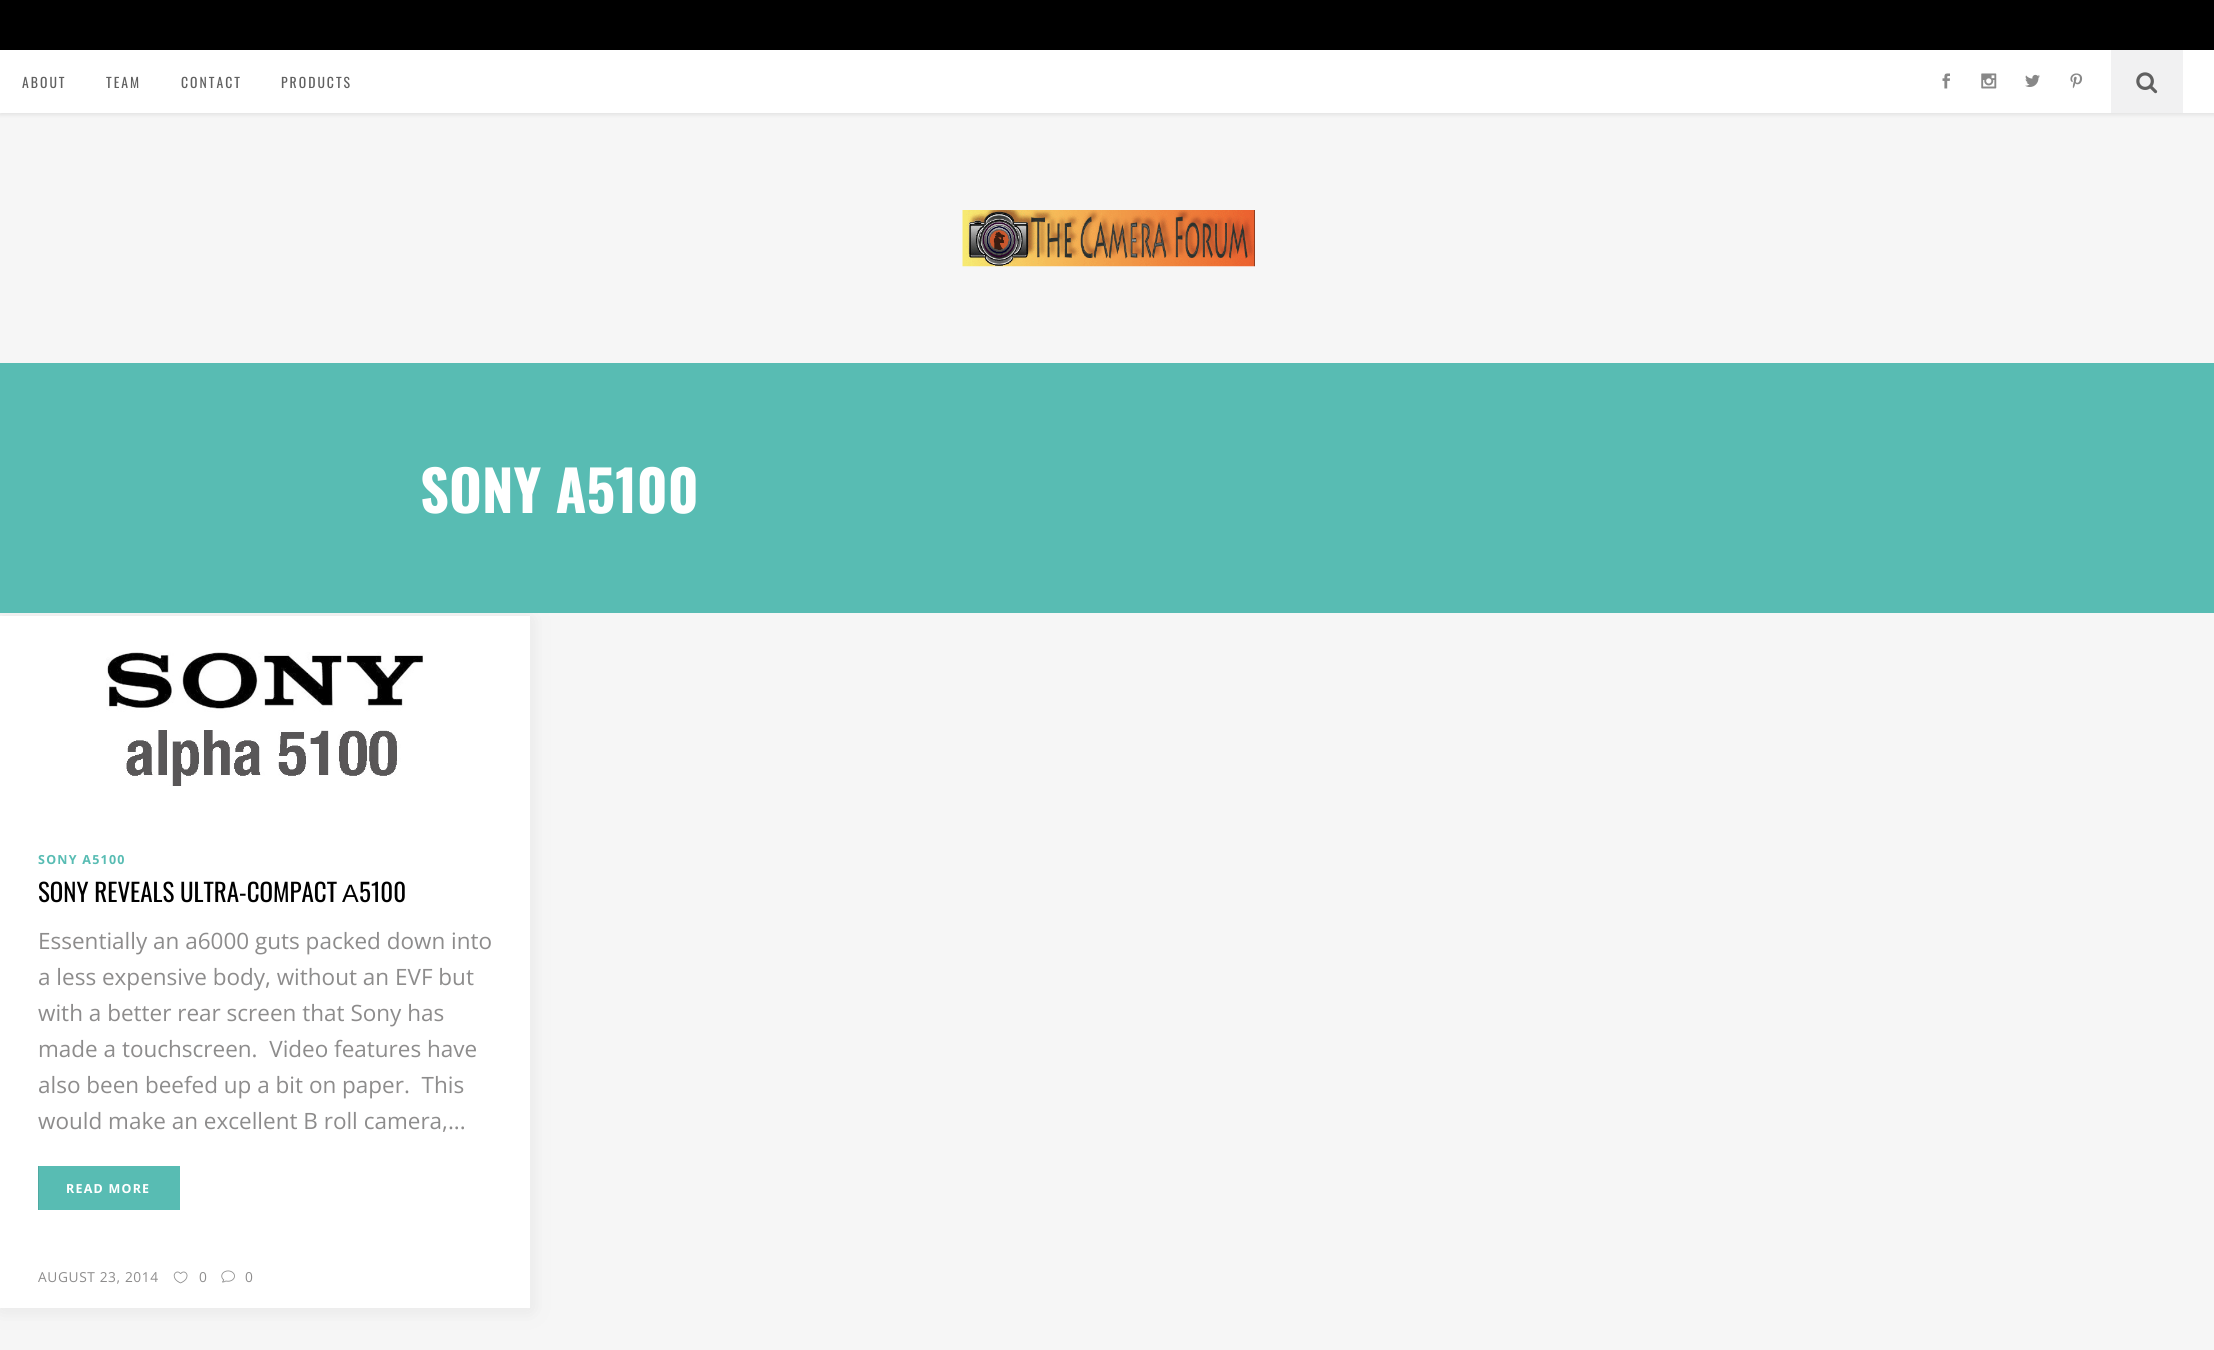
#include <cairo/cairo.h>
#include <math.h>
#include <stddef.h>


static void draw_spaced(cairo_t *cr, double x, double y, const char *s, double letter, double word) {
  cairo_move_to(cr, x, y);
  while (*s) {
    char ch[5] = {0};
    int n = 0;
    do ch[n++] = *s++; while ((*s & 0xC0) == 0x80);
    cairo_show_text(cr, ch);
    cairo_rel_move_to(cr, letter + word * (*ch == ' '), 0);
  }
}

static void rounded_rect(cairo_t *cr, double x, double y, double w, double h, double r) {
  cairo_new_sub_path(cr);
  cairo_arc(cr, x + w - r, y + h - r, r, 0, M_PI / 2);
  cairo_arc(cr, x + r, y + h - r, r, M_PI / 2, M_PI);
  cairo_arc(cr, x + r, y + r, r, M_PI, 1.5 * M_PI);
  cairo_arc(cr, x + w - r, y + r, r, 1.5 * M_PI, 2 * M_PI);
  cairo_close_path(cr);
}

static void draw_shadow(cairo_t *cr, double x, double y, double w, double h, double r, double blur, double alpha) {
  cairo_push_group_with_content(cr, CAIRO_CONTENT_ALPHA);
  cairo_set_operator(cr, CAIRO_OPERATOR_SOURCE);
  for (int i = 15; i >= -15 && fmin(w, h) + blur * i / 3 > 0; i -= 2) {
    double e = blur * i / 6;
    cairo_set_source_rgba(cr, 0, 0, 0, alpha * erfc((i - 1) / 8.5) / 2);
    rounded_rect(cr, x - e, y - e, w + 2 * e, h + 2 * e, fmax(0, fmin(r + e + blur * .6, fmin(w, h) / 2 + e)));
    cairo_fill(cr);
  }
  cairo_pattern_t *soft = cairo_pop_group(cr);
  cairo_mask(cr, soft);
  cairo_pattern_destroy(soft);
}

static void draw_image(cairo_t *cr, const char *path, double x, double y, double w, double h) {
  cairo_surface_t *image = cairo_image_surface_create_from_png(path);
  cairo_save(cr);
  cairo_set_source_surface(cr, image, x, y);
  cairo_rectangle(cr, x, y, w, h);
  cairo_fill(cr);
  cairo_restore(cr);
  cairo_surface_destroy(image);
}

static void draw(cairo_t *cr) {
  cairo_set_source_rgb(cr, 246 / 255.0, 246 / 255.0, 246 / 255.0);
  cairo_paint(cr);
  cairo_set_source_rgb(cr, 0, 0, 0);
  cairo_rectangle(cr, 0, 0, 2214, 50);
  cairo_fill(cr);
  cairo_set_source_rgb(cr, 0, 0, 0);
  draw_shadow(cr, 0, 53, 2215, 62, 0, 2, 0.08);
  cairo_set_source_rgb(cr, 1, 1, 1);
  cairo_rectangle(cr, 0, 50, 2214, 63);
  cairo_fill(cr);
  draw_image(cr, "images/1.png", 1942, 73, 8, 16);
  draw_image(cr, "images/2.png", 1981, 73, 16, 16);
  draw_image(cr, "images/3.png", 2025, 74, 15, 13);
  draw_image(cr, "images/4.png", 2070, 73, 13, 16);
  cairo_set_source_rgb(cr, 241 / 255.0, 241 / 255.0, 242 / 255.0);
  cairo_rectangle(cr, 2111, 50, 72, 63);
  cairo_fill(cr);
  draw_image(cr, "images/5.png", 2136, 72, 22, 22);
  draw_image(cr, "images/6.png", 962, 210, 293, 57);
  cairo_set_source_rgb(cr, 229 / 255.0, 229 / 255.0, 229 / 255.0);
  draw_shadow(cr, 1, 619, 530, 691, 0, 9.5, 1);
  cairo_set_source_rgb(cr, 88 / 255.0, 188 / 255.0, 179 / 255.0);
  cairo_rectangle(cr, 0, 363, 2214, 250);
  cairo_fill(cr);
  cairo_set_source_rgb(cr, 1, 1, 1);
  cairo_rectangle(cr, 0, 616, 530, 692);
  cairo_fill(cr);
  draw_image(cr, "images/7.png", 106, 652, 318, 134);
  cairo_set_source_rgb(cr, 88 / 255.0, 188 / 255.0, 179 / 255.0);
  cairo_rectangle(cr, 39, 1166, 141, 44);
  cairo_fill(cr);
  cairo_set_source_rgb(cr, 79 / 255.0, 169 / 255.0, 161 / 255.0);
  cairo_rectangle(cr, 38, 1166, 1, 44);
  cairo_fill(cr);
  draw_image(cr, "images/8.png", 173, 1271, 15, 13);
  draw_image(cr, "images/9.png", 221, 1270, 14, 13);
  cairo_select_font_face(cr, "Oswald", CAIRO_FONT_SLANT_NORMAL, CAIRO_FONT_WEIGHT_NORMAL);
  cairo_set_font_size(cr, 13.75);
  cairo_set_source_rgb(cr, 96 / 255.0, 96 / 255.0, 96 / 255.0);
  draw_spaced(cr, 22, 88, "ABOUT", 2, 0);
  draw_spaced(cr, 106, 88, "TEAM", 2, 0);
  draw_spaced(cr, 181, 88, "CONTACT", 2, 0);
  draw_spaced(cr, 281, 88, "PRODUCTS", 2, 0);
  cairo_select_font_face(cr, "Oswald", CAIRO_FONT_SLANT_NORMAL, CAIRO_FONT_WEIGHT_BOLD);
  cairo_set_font_size(cr, 56.25);
  cairo_set_source_rgb(cr, 1, 1, 1);
  cairo_move_to(cr, 420, 513);
  cairo_show_text(cr, "SONY A5100");
  cairo_select_font_face(cr, "Noto Sans", CAIRO_FONT_SLANT_NORMAL, CAIRO_FONT_WEIGHT_BOLD);
  cairo_set_font_size(cr, 12.5);
  cairo_set_source_rgb(cr, 88 / 255.0, 188 / 255.0, 179 / 255.0);
  draw_spaced(cr, 38, 864, "SONY A5100", 1.25, 0);
  cairo_select_font_face(cr, "Oswald", CAIRO_FONT_SLANT_NORMAL, CAIRO_FONT_WEIGHT_NORMAL);
  cairo_set_font_size(cr, 25);
  cairo_set_source_rgb(cr, 0, 0, 0);
  cairo_move_to(cr, 38, 902);
  cairo_show_text(cr, "SONY REVEALS ULTRA-COMPACT");
  cairo_select_font_face(cr, "Liberation Sans", CAIRO_FONT_SLANT_NORMAL, CAIRO_FONT_WEIGHT_NORMAL);
  cairo_move_to(cr, 342, 902);
  cairo_show_text(cr, "Α");
  cairo_select_font_face(cr, "Oswald", CAIRO_FONT_SLANT_NORMAL, CAIRO_FONT_WEIGHT_NORMAL);
  cairo_move_to(cr, 359, 902);
  cairo_show_text(cr, "5100");
  cairo_select_font_face(cr, "Open Sans", CAIRO_FONT_SLANT_NORMAL, CAIRO_FONT_WEIGHT_NORMAL);
  cairo_set_font_size(cr, 22.5);
  cairo_set_source_rgb(cr, 141 / 255.0, 140 / 255.0, 140 / 255.0);
  cairo_move_to(cr, 38, 949);
  cairo_show_text(cr, "Essentially an a6000 guts packed down into");
  cairo_move_to(cr, 38, 985);
  cairo_show_text(cr, "a less expensive body, without an EVF but");
  cairo_move_to(cr, 38, 1021);
  cairo_show_text(cr, "with a better rear screen that Sony has");
  cairo_move_to(cr, 38, 1057);
  cairo_show_text(cr, "made a touchscreen.  Video features have");
  cairo_move_to(cr, 38, 1093);
  cairo_show_text(cr, "also been beefed up a bit on paper.  This");
  cairo_move_to(cr, 38, 1129);
  cairo_show_text(cr, "would make an excellent B roll camera,...");
  cairo_select_font_face(cr, "Noto Sans", CAIRO_FONT_SLANT_NORMAL, CAIRO_FONT_WEIGHT_BOLD);
  cairo_set_font_size(cr, 12.5);
  cairo_set_source_rgb(cr, 1, 1, 1);
  draw_spaced(cr, 66, 1193, "READ MORE", 1.25, 0);
  cairo_select_font_face(cr, "Open Sans", CAIRO_FONT_SLANT_NORMAL, CAIRO_FONT_WEIGHT_NORMAL);
  cairo_set_font_size(cr, 13.75);
  cairo_set_source_rgb(cr, 141 / 255.0, 140 / 255.0, 140 / 255.0);
  draw_spaced(cr, 38, 1282, "AUGUST 23, 2014", 0.6, 0);
  cairo_move_to(cr, 199, 1282);
  cairo_show_text(cr, "0");
  cairo_move_to(cr, 245, 1282);
  cairo_show_text(cr, "0");
}

int main(void) {
  cairo_surface_t *surface = cairo_image_surface_create(CAIRO_FORMAT_RGB24, 2214, 1350);
  cairo_t *cr = cairo_create(surface);
  cairo_font_options_t *options = cairo_font_options_create();
  cairo_font_options_set_hint_metrics(options, CAIRO_HINT_METRICS_OFF);
  cairo_font_options_set_hint_style(options, CAIRO_HINT_STYLE_NONE);
  cairo_set_font_options(cr, options);
  cairo_set_miter_limit(cr, 4);
  draw(cr);
  cairo_surface_write_to_png(surface, "out.png");
  cairo_font_options_destroy(options);
  cairo_destroy(cr);
  cairo_surface_destroy(surface);
  return 0;
}
